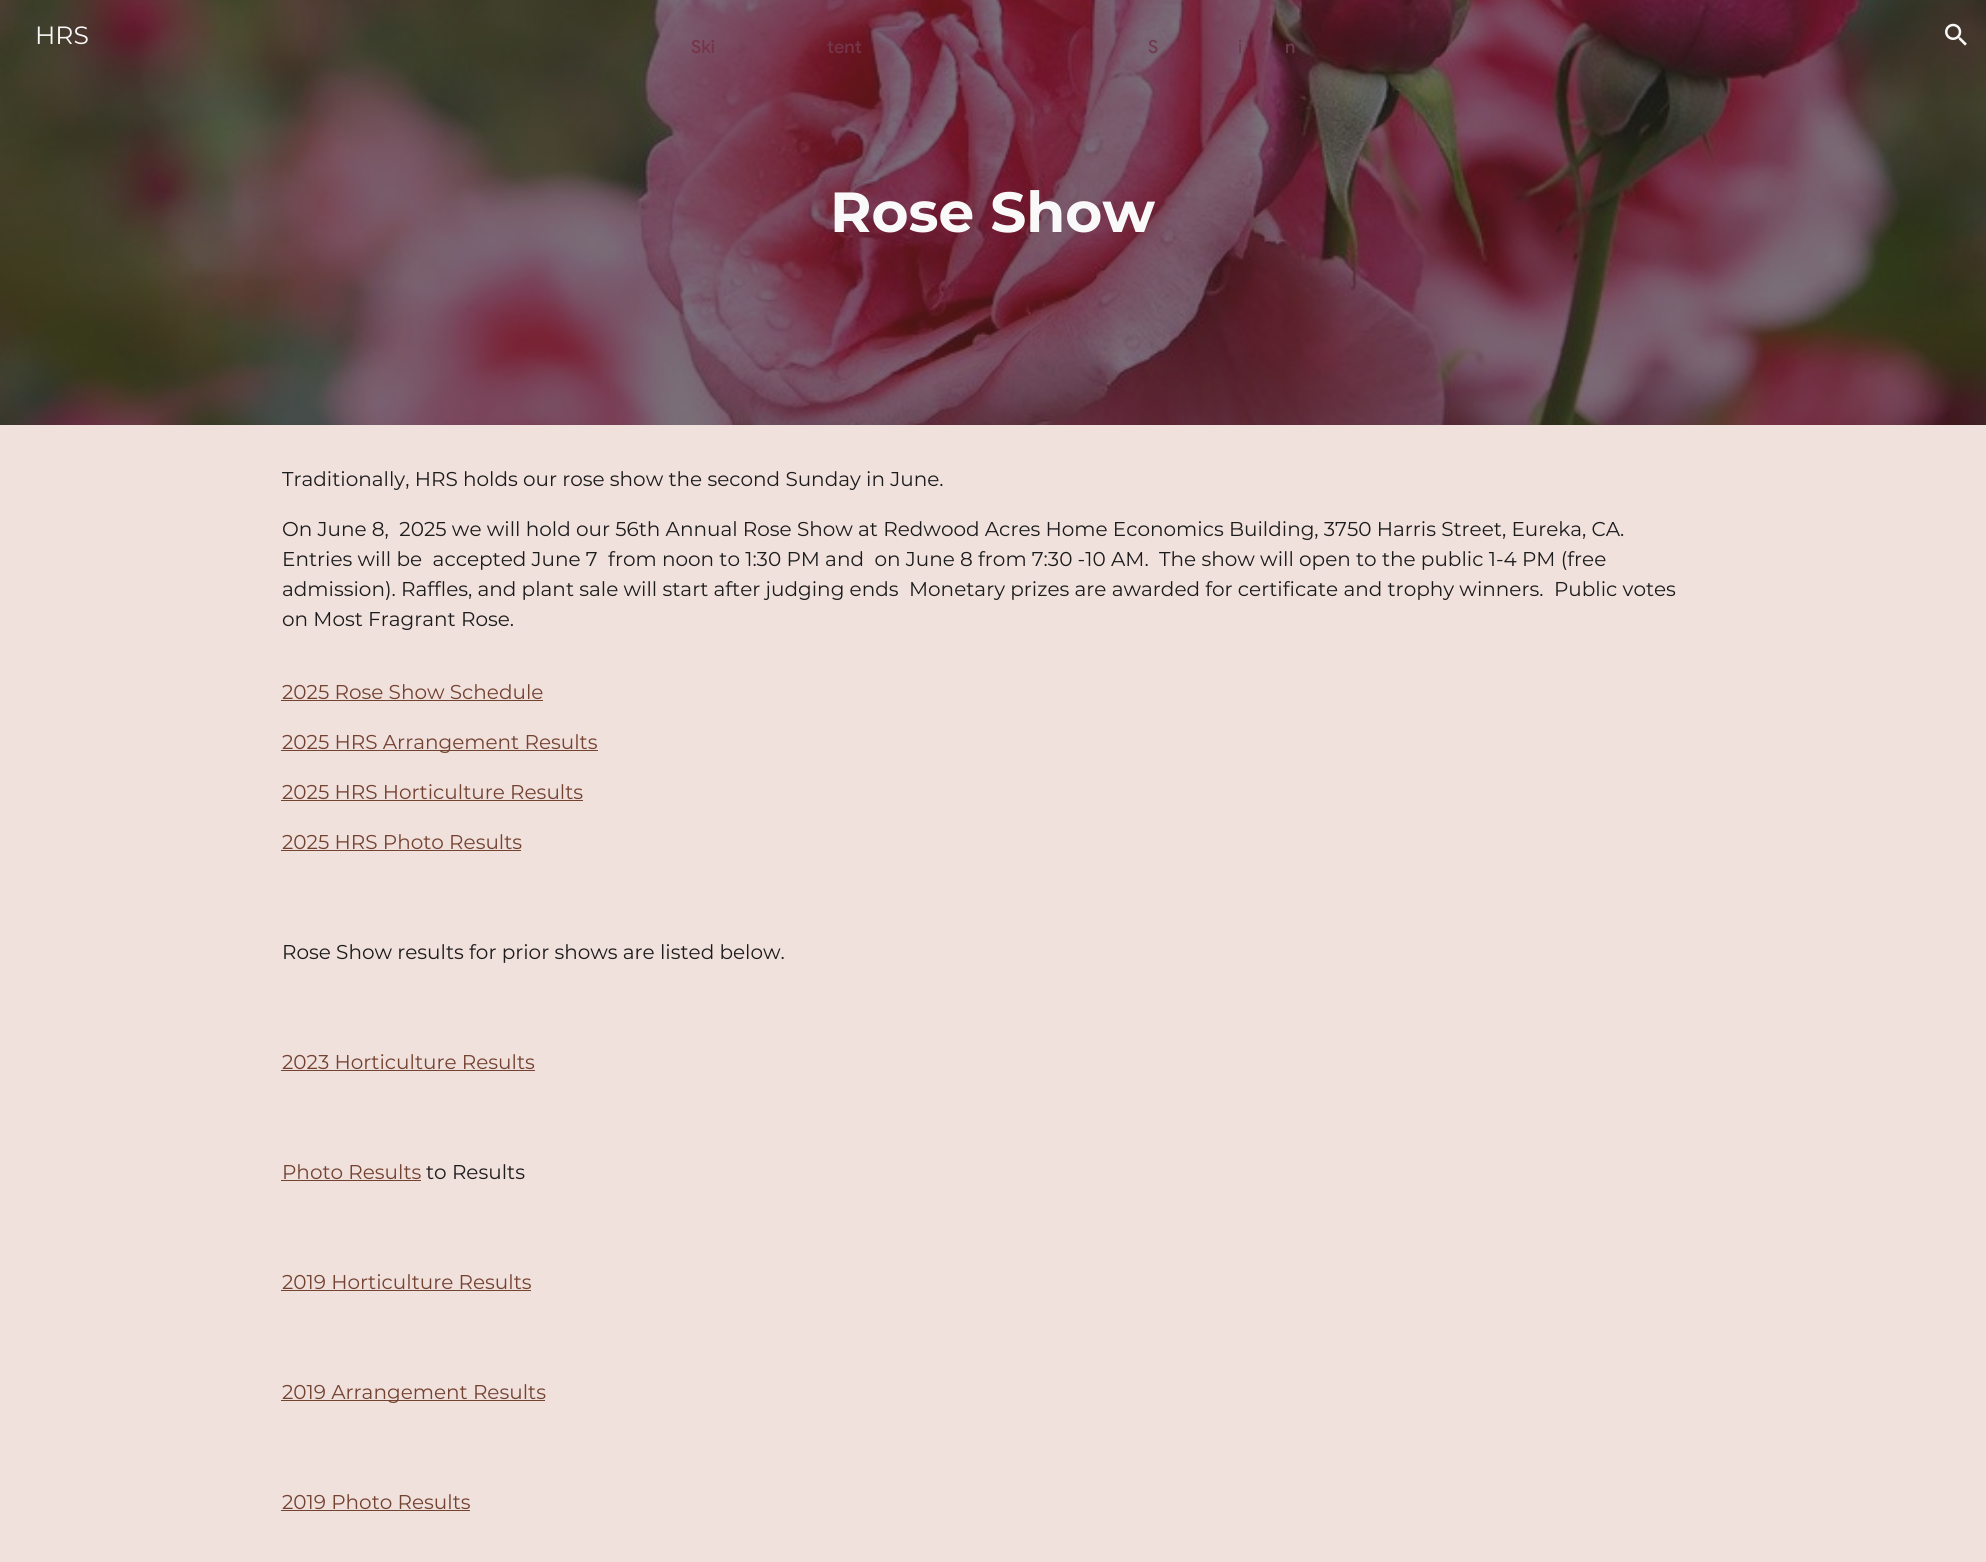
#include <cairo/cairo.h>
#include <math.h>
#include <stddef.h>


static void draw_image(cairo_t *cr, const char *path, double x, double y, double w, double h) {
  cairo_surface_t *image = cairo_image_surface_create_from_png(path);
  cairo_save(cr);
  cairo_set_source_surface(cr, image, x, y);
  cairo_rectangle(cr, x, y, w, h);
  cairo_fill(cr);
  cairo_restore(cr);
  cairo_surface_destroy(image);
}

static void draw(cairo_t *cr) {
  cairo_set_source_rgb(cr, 241 / 255.0, 225 / 255.0, 221 / 255.0);
  cairo_paint(cr);
  draw_image(cr, "images/2.png", 0, 0, 1986, 425);
  draw_image(cr, "images/1.png", 1945, 23, 22, 23);
  cairo_set_source_rgb(cr, 115 / 255.0, 67 / 255.0, 50 / 255.0);
  cairo_rectangle(cr, 281, 700, 262, 1);
  cairo_fill(cr);
  cairo_rectangle(cr, 281, 750, 317, 1);
  cairo_fill(cr);
  cairo_rectangle(cr, 281, 800, 302, 1);
  cairo_fill(cr);
  cairo_rectangle(cr, 281, 850, 240, 1);
  cairo_fill(cr);
  cairo_rectangle(cr, 281, 1070, 254, 1);
  cairo_fill(cr);
  cairo_rectangle(cr, 281, 1180, 140, 1);
  cairo_fill(cr);
  cairo_rectangle(cr, 281, 1290, 250, 1);
  cairo_fill(cr);
  cairo_rectangle(cr, 281, 1400, 264, 1);
  cairo_fill(cr);
  cairo_rectangle(cr, 281, 1510, 189, 1);
  cairo_fill(cr);
  cairo_select_font_face(cr, "Montserrat", CAIRO_FONT_SLANT_NORMAL, CAIRO_FONT_WEIGHT_NORMAL);
  cairo_set_font_size(cr, 25);
  cairo_set_source_rgb(cr, 249 / 255.0, 249 / 255.0, 249 / 255.0);
  cairo_move_to(cr, 35, 44);
  cairo_show_text(cr, "HRS");
  cairo_select_font_face(cr, "Montserrat", CAIRO_FONT_SLANT_NORMAL, CAIRO_FONT_WEIGHT_BOLD);
  cairo_set_font_size(cr, 56.5);
  cairo_move_to(cr, 830, 232);
  cairo_show_text(cr, "Rose Show");
  cairo_select_font_face(cr, "Montserrat", CAIRO_FONT_SLANT_NORMAL, CAIRO_FONT_WEIGHT_NORMAL);
  cairo_set_font_size(cr, 20);
  cairo_set_source_rgb(cr, 28 / 255.0, 28 / 255.0, 28 / 255.0);
  cairo_move_to(cr, 282, 486);
  cairo_show_text(cr, "Traditionally, HRS holds our rose show the second Sunday in June.");
  cairo_move_to(cr, 282, 536);
  cairo_show_text(cr, "On June 8,  2025 we will hold our 56th Annual Rose Show at Redwood Acres Home Economics Building, 3750 Harris Street, Eureka, CA.");
  cairo_move_to(cr, 282, 566);
  cairo_show_text(cr, "Entries will be  accepted June 7  from noon to 1:30 PM and  on June 8 from 7:30 -10 AM.  The show will open to the public 1-4 PM (free");
  cairo_move_to(cr, 282, 596);
  cairo_show_text(cr, "admission). Raffles, and plant sale will start after judging ends  Monetary prizes are awarded for certificate and trophy winners.  Public votes");
  cairo_move_to(cr, 282, 626);
  cairo_show_text(cr, "on Most Fragrant Rose.");
  cairo_set_source_rgb(cr, 115 / 255.0, 67 / 255.0, 50 / 255.0);
  cairo_move_to(cr, 282, 699);
  cairo_show_text(cr, "2025 Rose Show Schedule");
  cairo_move_to(cr, 282, 749);
  cairo_show_text(cr, "2025 HRS Arrangement Results");
  cairo_move_to(cr, 282, 799);
  cairo_show_text(cr, "2025 HRS Horticulture Results");
  cairo_move_to(cr, 282, 849);
  cairo_show_text(cr, "2025 HRS Photo Results");
  cairo_set_source_rgb(cr, 28 / 255.0, 28 / 255.0, 28 / 255.0);
  cairo_move_to(cr, 282, 959);
  cairo_show_text(cr, "Rose Show results for prior shows are listed below.");
  cairo_set_source_rgb(cr, 115 / 255.0, 67 / 255.0, 50 / 255.0);
  cairo_move_to(cr, 282, 1069);
  cairo_show_text(cr, "2023 Horticulture Results");
  cairo_move_to(cr, 282, 1179);
  cairo_show_text(cr, "Photo Results");
  cairo_set_source_rgb(cr, 28 / 255.0, 28 / 255.0, 28 / 255.0);
  cairo_move_to(cr, 426, 1179);
  cairo_show_text(cr, "to Results");
  cairo_set_source_rgb(cr, 115 / 255.0, 67 / 255.0, 50 / 255.0);
  cairo_move_to(cr, 282, 1289);
  cairo_show_text(cr, "2019 Horticulture Results");
  cairo_move_to(cr, 282, 1399);
  cairo_show_text(cr, "2019 Arrangement Results");
  cairo_move_to(cr, 282, 1509);
  cairo_show_text(cr, "2019 Photo Results");
  cairo_select_font_face(cr, "Google Sans Medium", CAIRO_FONT_SLANT_NORMAL, CAIRO_FONT_WEIGHT_NORMAL);
  cairo_set_font_size(cr, 18);
  cairo_set_source_rgb(cr, 117 / 255.0, 52 / 255.0, 72 / 255.0);
  cairo_move_to(cr, 691, 53);
  cairo_show_text(cr, "Ski");
  cairo_move_to(cr, 827, 53);
  cairo_show_text(cr, "tent");
  cairo_set_source_rgb(cr, 112 / 255.0, 58 / 255.0, 79 / 255.0);
  cairo_move_to(cr, 1148, 53);
  cairo_show_text(cr, "S");
  cairo_move_to(cr, 1238, 53);
  cairo_show_text(cr, "i");
  cairo_move_to(cr, 1285, 53);
  cairo_show_text(cr, "n");
}

int main(void) {
  cairo_surface_t *surface = cairo_image_surface_create(CAIRO_FORMAT_RGB24, 1986, 1562);
  cairo_t *cr = cairo_create(surface);
  cairo_font_options_t *options = cairo_font_options_create();
  cairo_font_options_set_hint_metrics(options, CAIRO_HINT_METRICS_OFF);
  cairo_font_options_set_hint_style(options, CAIRO_HINT_STYLE_NONE);
  cairo_set_font_options(cr, options);
  cairo_set_miter_limit(cr, 4);
  draw(cr);
  cairo_surface_write_to_png(surface, "out.png");
  cairo_font_options_destroy(options);
  cairo_destroy(cr);
  cairo_surface_destroy(surface);
  return 0;
}
